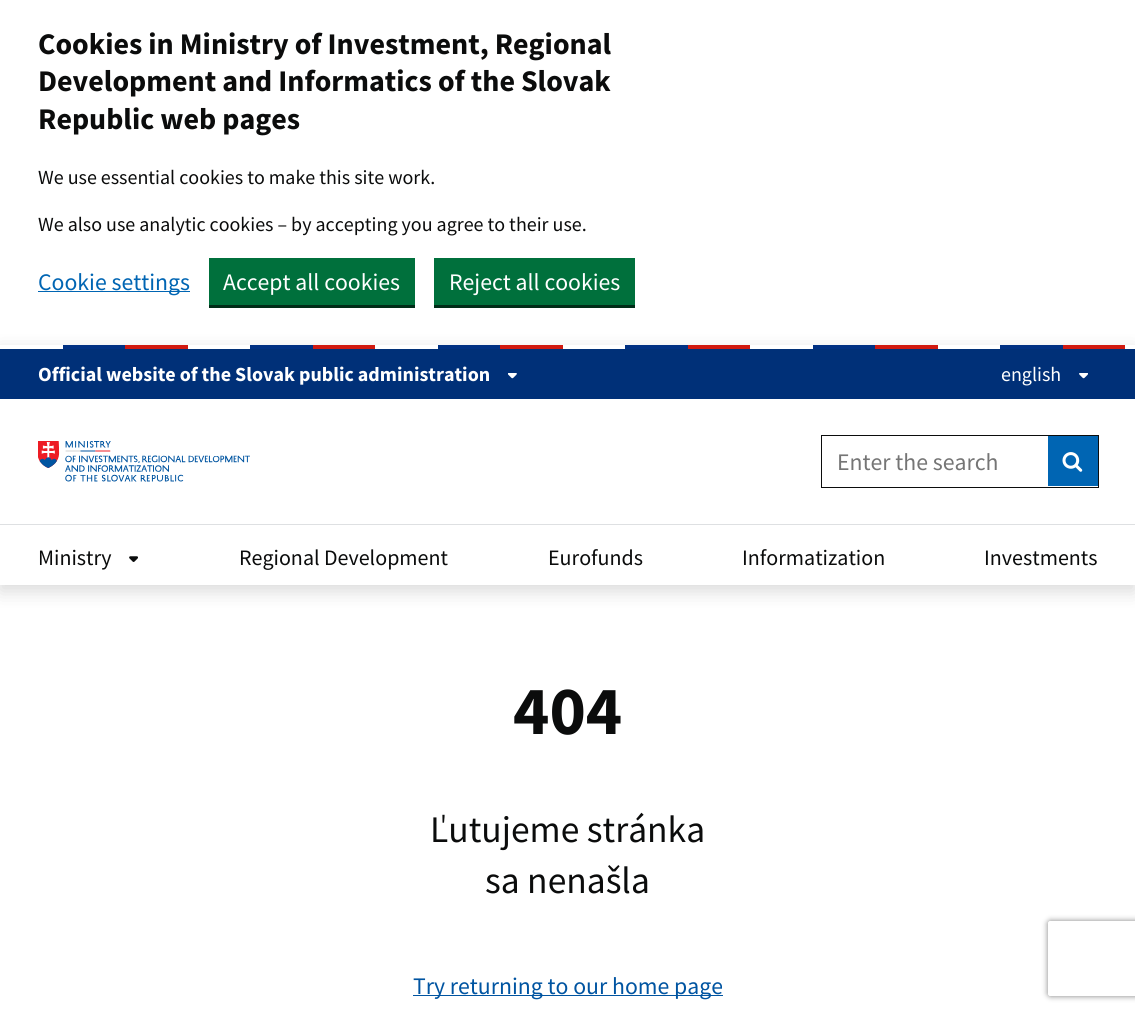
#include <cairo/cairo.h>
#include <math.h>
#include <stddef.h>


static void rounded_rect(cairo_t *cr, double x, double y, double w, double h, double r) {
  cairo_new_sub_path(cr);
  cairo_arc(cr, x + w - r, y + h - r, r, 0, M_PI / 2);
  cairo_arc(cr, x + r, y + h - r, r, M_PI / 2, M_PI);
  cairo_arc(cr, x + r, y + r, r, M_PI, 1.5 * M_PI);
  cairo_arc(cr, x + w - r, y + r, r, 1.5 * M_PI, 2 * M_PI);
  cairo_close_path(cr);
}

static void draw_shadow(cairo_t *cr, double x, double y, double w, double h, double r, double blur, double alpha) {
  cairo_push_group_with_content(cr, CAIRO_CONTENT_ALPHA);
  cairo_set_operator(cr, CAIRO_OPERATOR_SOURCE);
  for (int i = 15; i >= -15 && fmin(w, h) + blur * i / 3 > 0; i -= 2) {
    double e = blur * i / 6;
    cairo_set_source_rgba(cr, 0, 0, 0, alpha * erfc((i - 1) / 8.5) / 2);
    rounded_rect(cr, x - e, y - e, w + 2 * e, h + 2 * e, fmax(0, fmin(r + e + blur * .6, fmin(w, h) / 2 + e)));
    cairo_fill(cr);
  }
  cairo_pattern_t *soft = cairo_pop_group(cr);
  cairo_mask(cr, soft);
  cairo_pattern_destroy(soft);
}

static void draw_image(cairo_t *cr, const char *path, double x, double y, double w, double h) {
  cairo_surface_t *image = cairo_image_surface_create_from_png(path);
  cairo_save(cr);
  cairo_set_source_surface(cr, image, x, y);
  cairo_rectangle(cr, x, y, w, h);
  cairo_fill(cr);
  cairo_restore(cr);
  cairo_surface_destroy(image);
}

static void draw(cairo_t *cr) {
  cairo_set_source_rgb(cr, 1, 1, 1);
  cairo_paint(cr);
  cairo_set_source_rgb(cr, 0, 101 / 255.0, 179 / 255.0);
  cairo_rectangle(cr, 38, 291, 152, 1);
  cairo_fill(cr);
  cairo_set_source_rgb(cr, 0, 45 / 255.0, 24 / 255.0);
  cairo_rectangle(cr, 209, 305, 206, 3);
  cairo_fill(cr);
  cairo_set_source_rgb(cr, 0, 112 / 255.0, 60 / 255.0);
  cairo_rectangle(cr, 209, 258, 206, 47);
  cairo_fill(cr);
  cairo_set_source_rgb(cr, 0, 45 / 255.0, 24 / 255.0);
  cairo_rectangle(cr, 434, 305, 201, 3);
  cairo_fill(cr);
  cairo_set_source_rgb(cr, 0, 112 / 255.0, 60 / 255.0);
  cairo_rectangle(cr, 434, 258, 201, 47);
  cairo_fill(cr);
  cairo_save(cr);
  cairo_set_fill_rule(cr, CAIRO_FILL_RULE_EVEN_ODD);
  cairo_new_path(cr);
  cairo_move_to(cr, 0, 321);
  cairo_line_to(cr, 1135, 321);
  cairo_line_to(cr, 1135, 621);
  cairo_line_to(cr, 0, 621);
  cairo_close_path(cr);
  cairo_move_to(cr, 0, 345);
  cairo_line_to(cr, 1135, 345);
  cairo_line_to(cr, 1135, 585);
  cairo_line_to(cr, 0, 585);
  cairo_close_path(cr);
  cairo_clip(cr);
  cairo_set_source_rgb(cr, 0, 0, 0);
  draw_shadow(cr, 0, 351, 1135, 240, 0, 9.5, 0.15);
  cairo_restore(cr);
  draw_image(cr, "images/1.png", 63, 345, 1062, 4);
  cairo_set_source_rgb(cr, 0, 48 / 255.0, 120 / 255.0);
  cairo_rectangle(cr, 0, 349, 1135, 50);
  cairo_fill(cr);
  draw_image(cr, "images/2.png", 508, 373, 9, 6);
  draw_image(cr, "images/3.png", 1079, 373, 9, 6);
  draw_image(cr, "images/4.png", 38, 441, 212, 41);
  cairo_rectangle(cr, 821.5, 435.5, 277, 52);
  cairo_set_source_rgb(cr, 11 / 255.0, 12 / 255.0, 12 / 255.0);
  cairo_set_line_width(cr, 1);
  cairo_stroke(cr);
  cairo_set_source_rgb(cr, 0, 101 / 255.0, 179 / 255.0);
  cairo_rectangle(cr, 1048, 436, 50, 50);
  cairo_fill(cr);
  draw_image(cr, "images/5.png", 1062, 452, 21, 20);
  cairo_set_source_rgb(cr, 222 / 255.0, 224 / 255.0, 226 / 255.0);
  cairo_rectangle(cr, 0, 524, 1135, 1);
  cairo_fill(cr);
  draw_image(cr, "images/6.png", 129, 556, 9, 6);
  cairo_set_source_rgb(cr, 0, 84 / 255.0, 161 / 255.0);
  cairo_rectangle(cr, 413, 995, 310, 1);
  cairo_fill(cr);
  cairo_save(cr);
  cairo_set_fill_rule(cr, CAIRO_FILL_RULE_EVEN_ODD);
  cairo_new_path(cr);
  cairo_move_to(cr, 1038, 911);
  cairo_line_to(cr, 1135, 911);
  cairo_line_to(cr, 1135, 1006);
  cairo_line_to(cr, 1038, 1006);
  cairo_close_path(cr);
  cairo_move_to(cr, 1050.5, 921);
  cairo_line_to(cr, 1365.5, 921);
  cairo_curve_to(cr, 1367, 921, 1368, 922, 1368, 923.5);
  cairo_line_to(cr, 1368, 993.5);
  cairo_curve_to(cr, 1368, 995, 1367, 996, 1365.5, 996);
  cairo_line_to(cr, 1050.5, 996);
  cairo_curve_to(cr, 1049, 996, 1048, 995, 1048, 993.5);
  cairo_line_to(cr, 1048, 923.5);
  cairo_curve_to(cr, 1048, 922, 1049, 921, 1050.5, 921);
  cairo_close_path(cr);
  cairo_clip(cr);
  cairo_set_source_rgb(cr, 128 / 255.0, 128 / 255.0, 128 / 255.0);
  draw_shadow(cr, 1048, 921, 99, 75, 2.5, 3, 1);
  cairo_restore(cr);
  cairo_select_font_face(cr, "Source Sans Pro", CAIRO_FONT_SLANT_NORMAL, CAIRO_FONT_WEIGHT_BOLD);
  cairo_set_font_size(cr, 30);
  cairo_set_source_rgb(cr, 11 / 255.0, 12 / 255.0, 12 / 255.0);
  cairo_move_to(cr, 38, 54);
  cairo_show_text(cr, "Cookies in Ministry of Investment, Regional");
  cairo_move_to(cr, 38, 91);
  cairo_show_text(cr, "Development and Informatics of the Slovak");
  cairo_move_to(cr, 38, 129);
  cairo_show_text(cr, "Republic web pages");
  cairo_select_font_face(cr, "Source Sans Pro", CAIRO_FONT_SLANT_NORMAL, CAIRO_FONT_WEIGHT_NORMAL);
  cairo_set_font_size(cr, 20);
  cairo_move_to(cr, 38, 184);
  cairo_show_text(cr, "We use essential cookies to make this site work.");
  cairo_move_to(cr, 38, 231);
  cairo_show_text(cr, "We also use analytic cookies – by accepting you agree to their use.");
  cairo_set_font_size(cr, 23.75);
  cairo_set_source_rgb(cr, 0, 101 / 255.0, 179 / 255.0);
  cairo_move_to(cr, 38, 290);
  cairo_show_text(cr, "Cookie settings");
  cairo_set_source_rgb(cr, 1, 1, 1);
  cairo_move_to(cr, 223, 290);
  cairo_show_text(cr, "Accept all cookies");
  cairo_move_to(cr, 449, 290);
  cairo_show_text(cr, "Reject all cookies");
  cairo_select_font_face(cr, "Source Sans Pro", CAIRO_FONT_SLANT_NORMAL, CAIRO_FONT_WEIGHT_BOLD);
  cairo_set_font_size(cr, 20);
  cairo_move_to(cr, 38, 381);
  cairo_show_text(cr, "Official website of the Slovak public administration");
  cairo_select_font_face(cr, "Source Sans Pro", CAIRO_FONT_SLANT_NORMAL, CAIRO_FONT_WEIGHT_NORMAL);
  cairo_move_to(cr, 1001, 381);
  cairo_show_text(cr, "english");
  cairo_set_font_size(cr, 23.75);
  cairo_set_source_rgb(cr, 117 / 255.0, 117 / 255.0, 117 / 255.0);
  cairo_move_to(cr, 837, 470);
  cairo_show_text(cr, "Enter the search");
  cairo_set_font_size(cr, 22);
  cairo_set_source_rgb(cr, 11 / 255.0, 12 / 255.0, 12 / 255.0);
  cairo_move_to(cr, 38, 565);
  cairo_show_text(cr, "Ministry");
  cairo_move_to(cr, 239, 565);
  cairo_show_text(cr, "Regional Development");
  cairo_move_to(cr, 548, 565);
  cairo_show_text(cr, "Eurofunds");
  cairo_move_to(cr, 742, 565);
  cairo_show_text(cr, "Informatization");
  cairo_move_to(cr, 984, 565);
  cairo_show_text(cr, "Investments");
  cairo_select_font_face(cr, "Source Sans Pro", CAIRO_FONT_SLANT_NORMAL, CAIRO_FONT_WEIGHT_BOLD);
  cairo_set_font_size(cr, 69);
  cairo_move_to(cr, 513, 734);
  cairo_show_text(cr, "404");
  cairo_select_font_face(cr, "Source Sans Pro", CAIRO_FONT_SLANT_NORMAL, CAIRO_FONT_WEIGHT_NORMAL);
  cairo_set_font_size(cr, 37.5);
  cairo_move_to(cr, 430, 842);
  cairo_show_text(cr, "Ľutujeme stránka");
  cairo_move_to(cr, 485, 893);
  cairo_show_text(cr, "sa nenašla");
  cairo_set_font_size(cr, 23.75);
  cairo_set_source_rgb(cr, 0, 84 / 255.0, 161 / 255.0);
  cairo_move_to(cr, 413, 994);
  cairo_show_text(cr, "Try returning to our home page");
}

int main(void) {
  cairo_surface_t *surface = cairo_image_surface_create(CAIRO_FORMAT_RGB24, 1135, 1013);
  cairo_t *cr = cairo_create(surface);
  cairo_font_options_t *options = cairo_font_options_create();
  cairo_font_options_set_hint_metrics(options, CAIRO_HINT_METRICS_OFF);
  cairo_font_options_set_hint_style(options, CAIRO_HINT_STYLE_NONE);
  cairo_set_font_options(cr, options);
  cairo_set_miter_limit(cr, 4);
  draw(cr);
  cairo_surface_write_to_png(surface, "out.png");
  cairo_font_options_destroy(options);
  cairo_destroy(cr);
  cairo_surface_destroy(surface);
  return 0;
}
